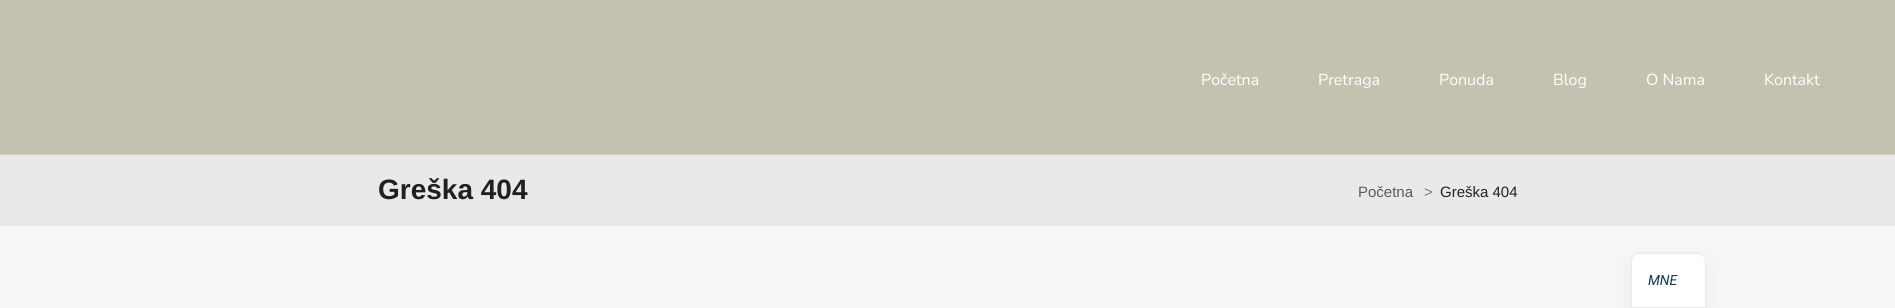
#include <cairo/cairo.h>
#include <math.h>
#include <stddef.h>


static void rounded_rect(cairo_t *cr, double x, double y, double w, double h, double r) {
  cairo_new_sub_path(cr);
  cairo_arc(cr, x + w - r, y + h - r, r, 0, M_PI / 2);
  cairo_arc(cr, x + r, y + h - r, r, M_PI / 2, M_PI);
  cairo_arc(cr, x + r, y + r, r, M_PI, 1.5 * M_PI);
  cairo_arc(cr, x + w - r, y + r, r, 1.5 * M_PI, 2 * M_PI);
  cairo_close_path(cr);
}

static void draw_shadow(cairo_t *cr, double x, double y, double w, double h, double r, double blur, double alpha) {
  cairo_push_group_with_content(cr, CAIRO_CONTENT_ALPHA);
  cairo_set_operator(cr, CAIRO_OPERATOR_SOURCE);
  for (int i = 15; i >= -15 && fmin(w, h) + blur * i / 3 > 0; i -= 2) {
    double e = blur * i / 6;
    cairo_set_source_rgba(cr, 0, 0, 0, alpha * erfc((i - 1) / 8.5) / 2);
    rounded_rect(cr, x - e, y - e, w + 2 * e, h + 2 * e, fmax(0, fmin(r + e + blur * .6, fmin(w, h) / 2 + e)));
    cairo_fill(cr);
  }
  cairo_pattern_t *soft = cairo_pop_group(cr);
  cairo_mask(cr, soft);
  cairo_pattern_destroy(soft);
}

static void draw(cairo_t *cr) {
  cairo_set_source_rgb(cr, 195 / 255.0, 194 / 255.0, 177 / 255.0);
  cairo_paint(cr);
  cairo_set_source_rgb(cr, 204 / 255.0, 203 / 255.0, 189 / 255.0);
  cairo_rectangle(cr, 0, 154, 1895, 1);
  cairo_fill(cr);
  cairo_set_source_rgb(cr, 233 / 255.0, 233 / 255.0, 233 / 255.0);
  cairo_rectangle(cr, 0, 155, 1895, 71);
  cairo_fill(cr);
  cairo_set_source_rgb(cr, 246 / 255.0, 246 / 255.0, 246 / 255.0);
  cairo_rectangle(cr, 0, 226, 1895, 82);
  cairo_fill(cr);
  cairo_set_source_rgb(cr, 0, 0, 0);
  draw_shadow(cr, 1631, 263, 75, 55, 8, 10, 0.05);
  cairo_set_source_rgb(cr, 1, 1, 1);
  cairo_new_path(cr);
  cairo_move_to(cr, 1639, 253);
  cairo_line_to(cr, 1698, 253);
  cairo_curve_to(cr, 1702.5, 253, 1706, 256.5, 1706, 261);
  cairo_line_to(cr, 1706, 308);
  cairo_line_to(cr, 1631, 308);
  cairo_line_to(cr, 1631, 261);
  cairo_curve_to(cr, 1631, 256.5, 1634.5, 253, 1639, 253);
  cairo_close_path(cr);
  cairo_fill(cr);
  cairo_new_path(cr);
  cairo_move_to(cr, 1639, 253.5);
  cairo_line_to(cr, 1698, 253.5);
  cairo_curve_to(cr, 1702, 253.5, 1705.5, 257, 1705.5, 261);
  cairo_line_to(cr, 1705.5, 307.5);
  cairo_line_to(cr, 1631.5, 307.5);
  cairo_line_to(cr, 1631.5, 261);
  cairo_curve_to(cr, 1631.5, 257, 1635, 253.5, 1639, 253.5);
  cairo_close_path(cr);
  cairo_set_source_rgba(cr, 20 / 255.0, 56 / 255.0, 82 / 255.0, 0.1);
  cairo_set_line_width(cr, 1);
  cairo_stroke(cr);
  cairo_select_font_face(cr, "Nunito", CAIRO_FONT_SLANT_NORMAL, CAIRO_FONT_WEIGHT_NORMAL);
  cairo_set_font_size(cr, 16);
  cairo_set_source_rgb(cr, 1, 1, 1);
  cairo_move_to(cr, 1201, 85);
  cairo_show_text(cr, "Početna");
  cairo_move_to(cr, 1318, 85);
  cairo_show_text(cr, "Pretraga");
  cairo_move_to(cr, 1439, 85);
  cairo_show_text(cr, "Ponuda");
  cairo_move_to(cr, 1553, 85);
  cairo_show_text(cr, "Blog");
  cairo_move_to(cr, 1646, 85);
  cairo_show_text(cr, "O Nama");
  cairo_move_to(cr, 1764, 85);
  cairo_show_text(cr, "Kontakt");
  cairo_select_font_face(cr, "Liberation Sans", CAIRO_FONT_SLANT_NORMAL, CAIRO_FONT_WEIGHT_BOLD);
  cairo_set_font_size(cr, 28);
  cairo_set_source_rgb(cr, 32 / 255.0, 32 / 255.0, 32 / 255.0);
  cairo_move_to(cr, 378, 199);
  cairo_show_text(cr, "Greška 404");
  cairo_select_font_face(cr, "Liberation Sans", CAIRO_FONT_SLANT_NORMAL, CAIRO_FONT_WEIGHT_NORMAL);
  cairo_set_font_size(cr, 15);
  cairo_set_source_rgb(cr, 92 / 255.0, 92 / 255.0, 92 / 255.0);
  cairo_move_to(cr, 1358, 197);
  cairo_show_text(cr, "Početna");
  cairo_set_source_rgb(cr, 123 / 255.0, 123 / 255.0, 123 / 255.0);
  cairo_move_to(cr, 1424, 197);
  cairo_show_text(cr, ">");
  cairo_set_source_rgb(cr, 32 / 255.0, 32 / 255.0, 32 / 255.0);
  cairo_move_to(cr, 1440, 197);
  cairo_show_text(cr, "Greška 404");
  cairo_select_font_face(cr, "Roboto", CAIRO_FONT_SLANT_ITALIC, CAIRO_FONT_WEIGHT_NORMAL);
  cairo_set_font_size(cr, 14);
  cairo_set_source_rgb(cr, 20 / 255.0, 56 / 255.0, 82 / 255.0);
  cairo_move_to(cr, 1648, 285);
  cairo_show_text(cr, "MNE");
}

int main(void) {
  cairo_surface_t *surface = cairo_image_surface_create(CAIRO_FORMAT_RGB24, 1895, 308);
  cairo_t *cr = cairo_create(surface);
  cairo_font_options_t *options = cairo_font_options_create();
  cairo_font_options_set_hint_metrics(options, CAIRO_HINT_METRICS_OFF);
  cairo_font_options_set_hint_style(options, CAIRO_HINT_STYLE_NONE);
  cairo_set_font_options(cr, options);
  cairo_set_miter_limit(cr, 4);
  draw(cr);
  cairo_surface_write_to_png(surface, "out.png");
  cairo_font_options_destroy(options);
  cairo_destroy(cr);
  cairo_surface_destroy(surface);
  return 0;
}
